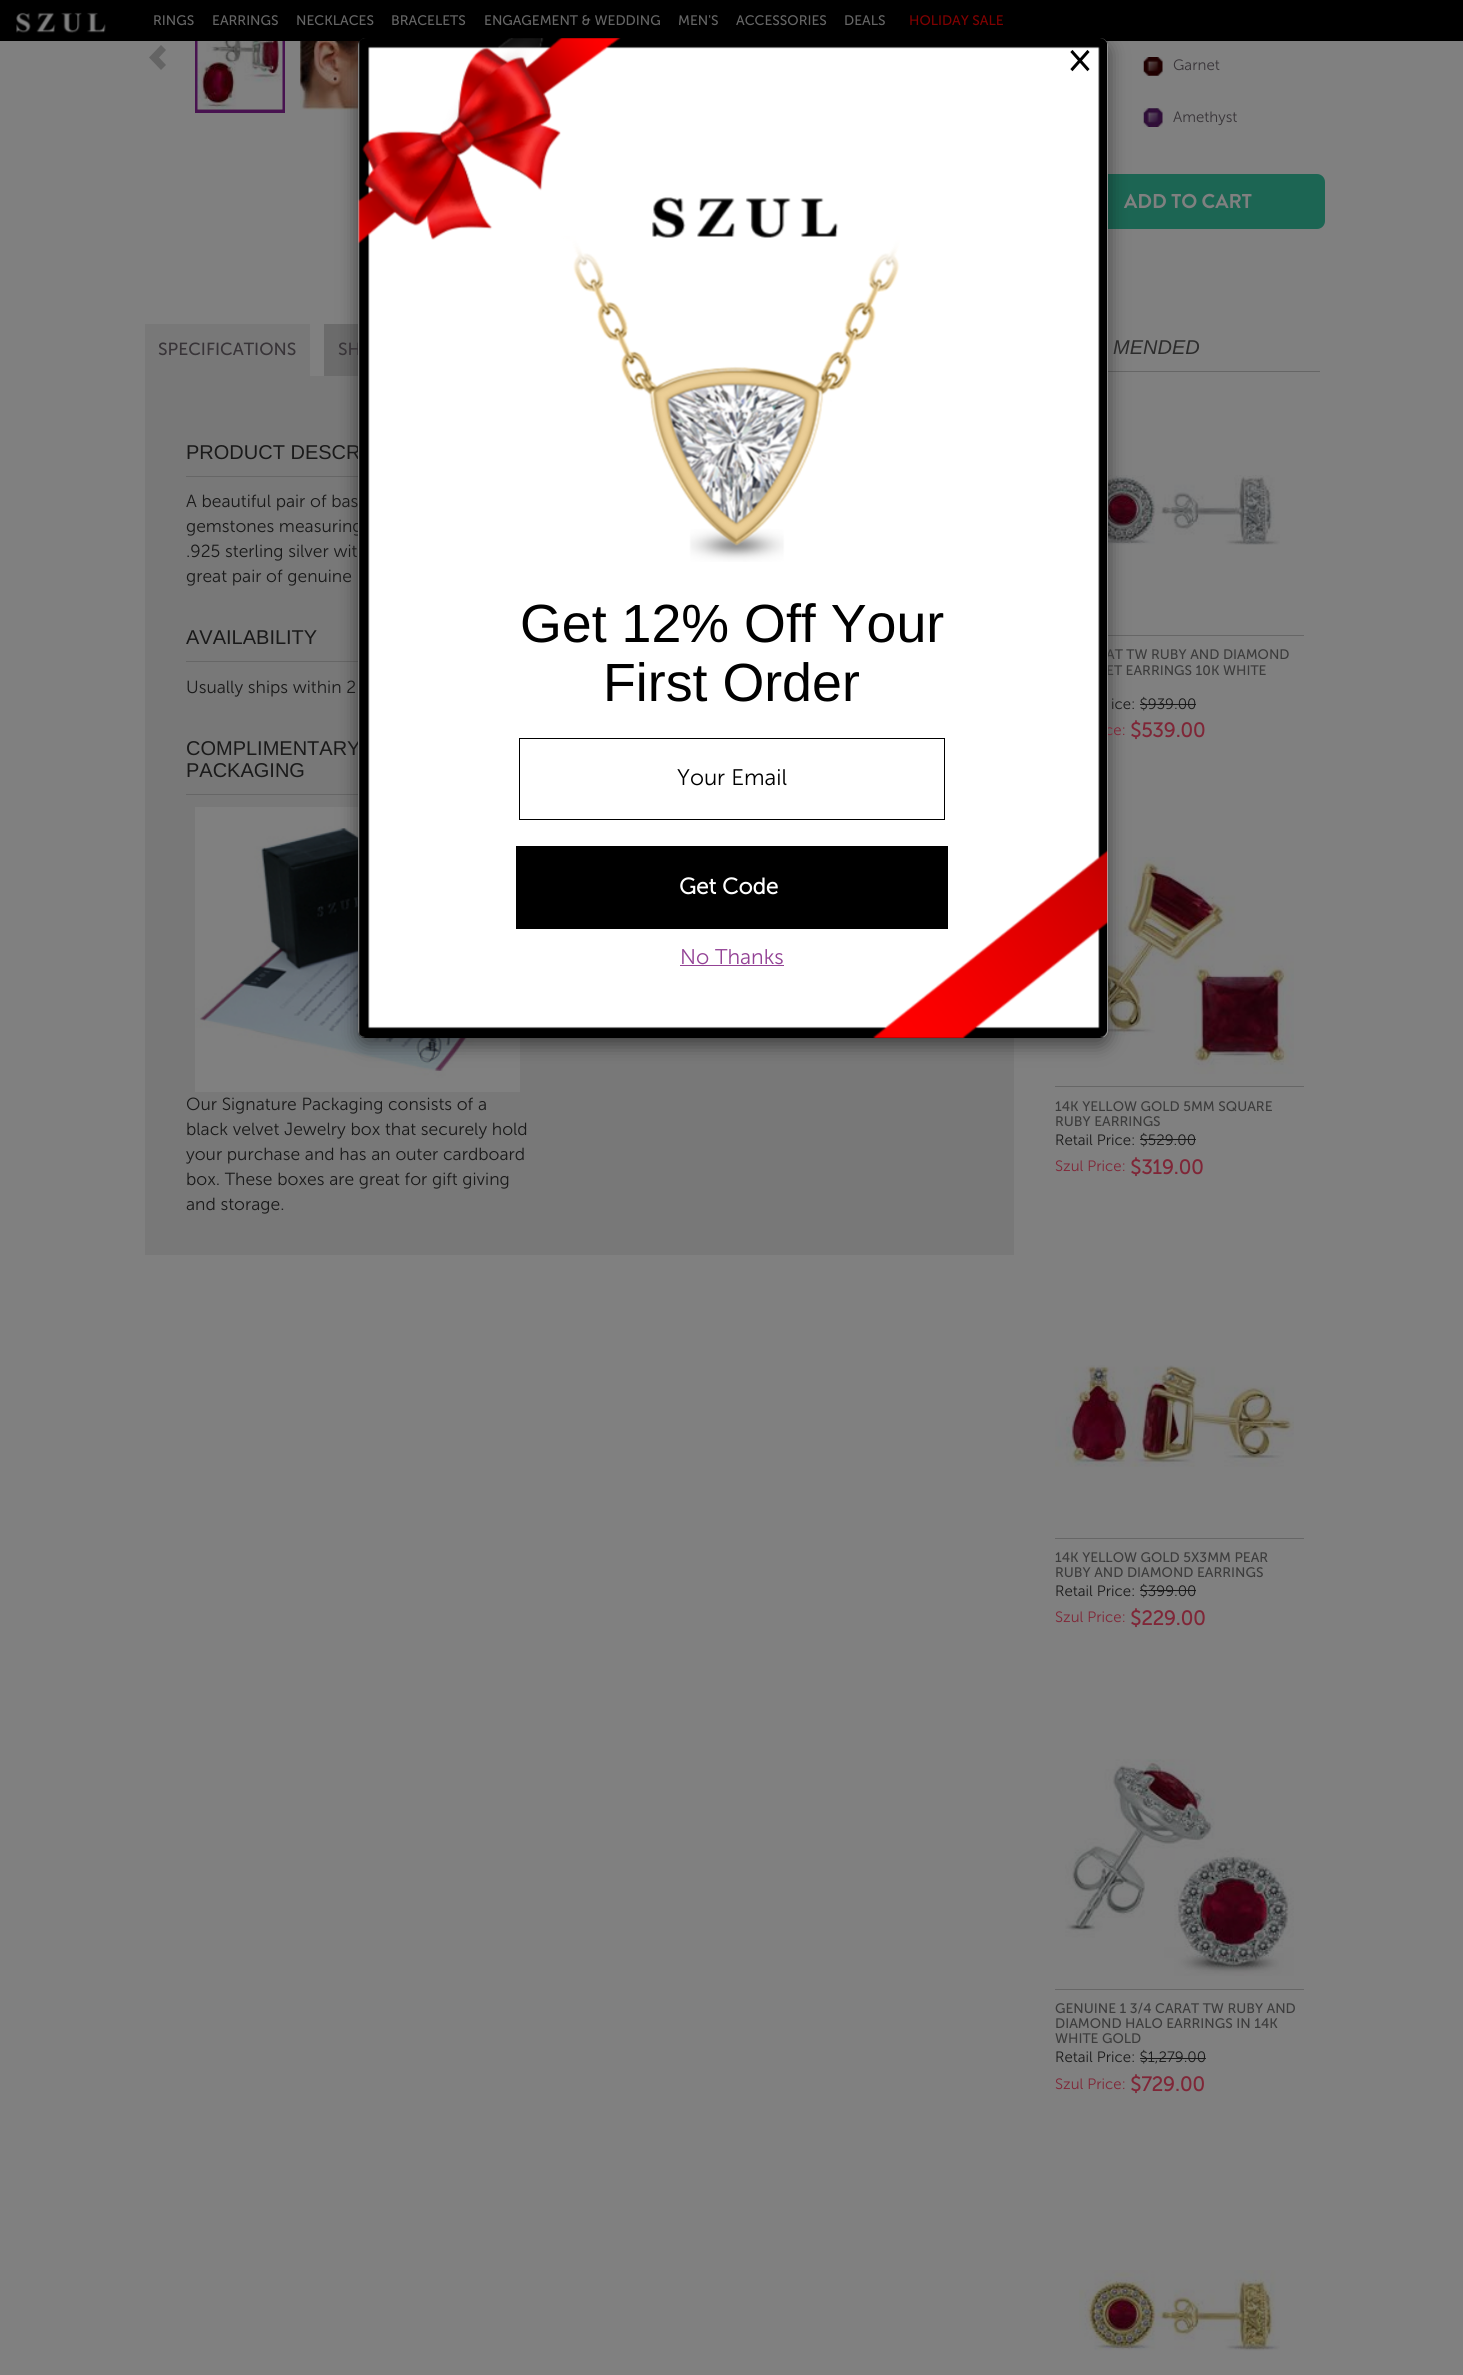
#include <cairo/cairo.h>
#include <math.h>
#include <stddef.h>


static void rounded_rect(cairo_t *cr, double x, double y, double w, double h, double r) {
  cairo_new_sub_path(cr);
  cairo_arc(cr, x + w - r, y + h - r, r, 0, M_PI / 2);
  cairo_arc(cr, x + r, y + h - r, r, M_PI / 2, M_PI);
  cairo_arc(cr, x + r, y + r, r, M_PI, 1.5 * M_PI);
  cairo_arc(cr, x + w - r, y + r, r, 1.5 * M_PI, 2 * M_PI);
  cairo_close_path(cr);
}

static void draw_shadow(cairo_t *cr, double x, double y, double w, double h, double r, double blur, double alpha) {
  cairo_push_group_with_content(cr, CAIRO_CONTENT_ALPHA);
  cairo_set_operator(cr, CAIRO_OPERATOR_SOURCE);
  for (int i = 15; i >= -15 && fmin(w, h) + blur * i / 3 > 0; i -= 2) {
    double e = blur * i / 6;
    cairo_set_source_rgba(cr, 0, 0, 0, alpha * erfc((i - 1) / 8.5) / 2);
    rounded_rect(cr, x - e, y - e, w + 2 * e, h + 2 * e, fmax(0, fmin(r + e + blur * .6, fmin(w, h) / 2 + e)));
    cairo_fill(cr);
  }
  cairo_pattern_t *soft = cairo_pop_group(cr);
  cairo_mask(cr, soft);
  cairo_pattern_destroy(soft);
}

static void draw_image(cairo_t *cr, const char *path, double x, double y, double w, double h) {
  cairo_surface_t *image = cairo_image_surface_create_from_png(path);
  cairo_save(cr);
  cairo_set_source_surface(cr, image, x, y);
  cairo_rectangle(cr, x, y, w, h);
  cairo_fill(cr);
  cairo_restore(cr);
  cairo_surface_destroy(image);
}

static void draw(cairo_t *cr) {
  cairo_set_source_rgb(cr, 128 / 255.0, 128 / 255.0, 128 / 255.0);
  cairo_paint(cr);
  cairo_set_source_rgb(cr, 74 / 255.0, 33 / 255.0, 75 / 255.0);
  cairo_rectangle(cr, 198, 109, 84, 1);
  cairo_fill(cr);
  cairo_rectangle(cr, 196.5, 24.5, 87, 87);
  cairo_set_source_rgb(cr, 72 / 255.0, 19 / 255.0, 80 / 255.0);
  cairo_set_line_width(cr, 3);
  cairo_stroke(cr);
  cairo_set_source_rgb(cr, 0, 0, 0);
  cairo_rectangle(cr, 0, 0, 1463, 41);
  cairo_fill(cr);
  draw_image(cr, "images/1.png", 16, 12, 90, 21);
  draw_image(cr, "images/6.png", 300, 41, 60, 69);
  cairo_set_source_rgb(cr, 28 / 255.0, 101 / 255.0, 83 / 255.0);
  rounded_rect(cr, 1053, 174, 272, 55, 8);
  cairo_fill(cr);
  cairo_set_source_rgb(cr, 107 / 255.0, 107 / 255.0, 107 / 255.0);
  cairo_rectangle(cr, 324, 324, 34, 52);
  cairo_fill(cr);
  cairo_set_source_rgb(cr, 120 / 255.0, 120 / 255.0, 120 / 255.0);
  cairo_rectangle(cr, 145, 376, 869, 879);
  cairo_fill(cr);
  cairo_set_source_rgb(cr, 102 / 255.0, 102 / 255.0, 102 / 255.0);
  cairo_rectangle(cr, 186, 476, 172, 1);
  cairo_fill(cr);
  cairo_rectangle(cr, 186, 661, 172, 1);
  cairo_fill(cr);
  cairo_rectangle(cr, 186, 794, 172, 1);
  cairo_fill(cr);
  draw_image(cr, "images/9.png", 195, 807, 325, 285);
  cairo_rectangle(cr, 1108, 371, 212, 1);
  cairo_fill(cr);
  draw_image(cr, "images/10.png", 1108, 475, 172, 70);
  cairo_rectangle(cr, 1108, 635, 196, 1);
  cairo_fill(cr);
  draw_image(cr, "images/11.png", 1074, 857, 220, 217);
  cairo_set_source_rgb(cr, 0, 0, 0);
  draw_shadow(cr, 358, 44, 750, 1000, 8, 9.5, 0.5);
  cairo_set_source_rgb(cr, 100 / 255.0, 100 / 255.0, 100 / 255.0);
  cairo_new_path(cr);
  cairo_move_to(cr, 149, 57.5);
  cairo_line_to(cr, 161, 70);
  cairo_line_to(cr, 166, 65);
  cairo_line_to(cr, 159, 57.5);
  cairo_line_to(cr, 166, 50);
  cairo_line_to(cr, 161, 45);
  cairo_close_path(cr);
  cairo_fill(cr);
  draw_image(cr, "images/5.png", 197, 41, 86, 69);
  draw_image(cr, "images/7.png", 1143, 57, 20, 19);
  draw_image(cr, "images/8.png", 1143, 108, 20, 19);
  cairo_set_source_rgb(cr, 120 / 255.0, 120 / 255.0, 120 / 255.0);
  cairo_rectangle(cr, 145, 324, 165, 52);
  cairo_fill(cr);
  cairo_set_source_rgb(cr, 26 / 255.0, 26 / 255.0, 26 / 255.0);
  cairo_rectangle(cr, 1140, 704, 56, 1);
  cairo_fill(cr);
  cairo_set_source_rgb(cr, 102 / 255.0, 102 / 255.0, 102 / 255.0);
  cairo_rectangle(cr, 1055, 1086, 249, 1);
  cairo_fill(cr);
  cairo_set_source_rgb(cr, 26 / 255.0, 26 / 255.0, 26 / 255.0);
  cairo_rectangle(cr, 1140, 1139, 56, 1);
  cairo_fill(cr);
  draw_image(cr, "images/12.png", 1055, 1365, 239, 102);
  cairo_set_source_rgb(cr, 102 / 255.0, 102 / 255.0, 102 / 255.0);
  cairo_rectangle(cr, 1055, 1538, 249, 1);
  cairo_fill(cr);
  cairo_set_source_rgb(cr, 26 / 255.0, 26 / 255.0, 26 / 255.0);
  cairo_rectangle(cr, 1140, 1590, 56, 1);
  cairo_fill(cr);
  draw_image(cr, "images/13.png", 1065, 1759, 229, 217);
  cairo_set_source_rgb(cr, 102 / 255.0, 102 / 255.0, 102 / 255.0);
  cairo_rectangle(cr, 1055, 1989, 249, 1);
  cairo_fill(cr);
  cairo_set_source_rgb(cr, 26 / 255.0, 26 / 255.0, 26 / 255.0);
  cairo_rectangle(cr, 1140, 2058, 66, 1);
  cairo_fill(cr);
  draw_image(cr, "images/14.png", 1079, 2270, 201, 81);
  cairo_select_font_face(cr, "Museo Sans", CAIRO_FONT_SLANT_NORMAL, CAIRO_FONT_WEIGHT_NORMAL);
  cairo_set_font_size(cr, 13.75);
  cairo_set_source_rgb(cr, 102 / 255.0, 102 / 255.0, 102 / 255.0);
  cairo_move_to(cr, 153, 25);
  cairo_show_text(cr, "RINGS");
  cairo_move_to(cr, 212, 25);
  cairo_show_text(cr, "EARRINGS");
  cairo_move_to(cr, 296, 25);
  cairo_show_text(cr, "NECKLACES");
  cairo_move_to(cr, 391, 25);
  cairo_show_text(cr, "BRACELETS");
  cairo_move_to(cr, 484, 25);
  cairo_show_text(cr, "ENGAGEMENT & WEDDING");
  cairo_move_to(cr, 678, 25);
  cairo_show_text(cr, "MEN'S");
  cairo_move_to(cr, 736, 25);
  cairo_show_text(cr, "ACCESSORIES");
  cairo_move_to(cr, 844, 25);
  cairo_show_text(cr, "DEALS");
  cairo_set_source_rgb(cr, 128 / 255.0, 0, 0);
  cairo_move_to(cr, 909, 25);
  cairo_show_text(cr, "HOLIDAY SALE");
  cairo_select_font_face(cr, "Museo Sans Light", CAIRO_FONT_SLANT_NORMAL, CAIRO_FONT_WEIGHT_NORMAL);
  cairo_set_font_size(cr, 15);
  cairo_set_source_rgb(cr, 56 / 255.0, 52 / 255.0, 56 / 255.0);
  cairo_move_to(cr, 1173, 70);
  cairo_show_text(cr, "Garnet");
  cairo_move_to(cr, 1173, 122);
  cairo_show_text(cr, "Amethyst");
  cairo_select_font_face(cr, "Brandon Grotesque", CAIRO_FONT_SLANT_NORMAL, CAIRO_FONT_WEIGHT_BOLD);
  cairo_set_font_size(cr, 20);
  cairo_set_source_rgb(cr, 128 / 255.0, 128 / 255.0, 128 / 255.0);
  cairo_move_to(cr, 1124, 208);
  cairo_show_text(cr, "ADD TO CART");
  cairo_select_font_face(cr, "Museo Sans", CAIRO_FONT_SLANT_NORMAL, CAIRO_FONT_WEIGHT_NORMAL);
  cairo_set_font_size(cr, 17.5);
  cairo_set_source_rgb(cr, 56 / 255.0, 52 / 255.0, 56 / 255.0);
  cairo_move_to(cr, 158, 355);
  cairo_show_text(cr, "SPECIFICATIONS");
  cairo_move_to(cr, 338, 355);
  cairo_show_text(cr, "SH");
  cairo_select_font_face(cr, "Liberation Sans", CAIRO_FONT_SLANT_NORMAL, CAIRO_FONT_WEIGHT_NORMAL);
  cairo_set_font_size(cr, 20);
  cairo_set_source_rgb(cr, 26 / 255.0, 26 / 255.0, 26 / 255.0);
  cairo_move_to(cr, 186, 459);
  cairo_show_text(cr, "PRODUCT DESCR");
  cairo_select_font_face(cr, "Museo Sans Light", CAIRO_FONT_SLANT_NORMAL, CAIRO_FONT_WEIGHT_NORMAL);
  cairo_set_font_size(cr, 17.5);
  cairo_move_to(cr, 186, 507);
  cairo_show_text(cr, "A beautiful pair of bas");
  cairo_move_to(cr, 186, 532);
  cairo_show_text(cr, "gemstones measuring");
  cairo_move_to(cr, 186, 557);
  cairo_show_text(cr, ".925 sterling silver wit");
  cairo_move_to(cr, 186, 582);
  cairo_show_text(cr, "great pair of genuine");
  cairo_select_font_face(cr, "Liberation Sans", CAIRO_FONT_SLANT_NORMAL, CAIRO_FONT_WEIGHT_NORMAL);
  cairo_set_font_size(cr, 20);
  cairo_move_to(cr, 186, 644);
  cairo_show_text(cr, "AVAILABILITY");
  cairo_select_font_face(cr, "Museo Sans Light", CAIRO_FONT_SLANT_NORMAL, CAIRO_FONT_WEIGHT_NORMAL);
  cairo_set_font_size(cr, 17.5);
  cairo_move_to(cr, 186, 693);
  cairo_show_text(cr, "Usually ships within 2");
  cairo_select_font_face(cr, "Liberation Sans", CAIRO_FONT_SLANT_NORMAL, CAIRO_FONT_WEIGHT_NORMAL);
  cairo_set_font_size(cr, 20);
  cairo_move_to(cr, 186, 755);
  cairo_show_text(cr, "COMPLIMENTARY");
  cairo_move_to(cr, 186, 777);
  cairo_show_text(cr, "PACKAGING");
  cairo_select_font_face(cr, "Museo Sans Light", CAIRO_FONT_SLANT_NORMAL, CAIRO_FONT_WEIGHT_NORMAL);
  cairo_set_font_size(cr, 17.5);
  cairo_move_to(cr, 186, 1110);
  cairo_show_text(cr, "Our Signature Packaging consists of a");
  cairo_move_to(cr, 186, 1135);
  cairo_show_text(cr, "black velvet Jewelry box that securely hold");
  cairo_move_to(cr, 186, 1160);
  cairo_show_text(cr, "your purchase and has an outer cardboard");
  cairo_move_to(cr, 186, 1185);
  cairo_show_text(cr, "box. These boxes are great for gift giving");
  cairo_move_to(cr, 186, 1210);
  cairo_show_text(cr, "and storage.");
  cairo_select_font_face(cr, "Liberation Sans", CAIRO_FONT_SLANT_ITALIC, CAIRO_FONT_WEIGHT_NORMAL);
  cairo_set_font_size(cr, 20);
  cairo_set_source_rgb(cr, 44 / 255.0, 44 / 255.0, 44 / 255.0);
  cairo_move_to(cr, 1113, 354);
  cairo_show_text(cr, "MENDED");
  cairo_select_font_face(cr, "Museo Sans", CAIRO_FONT_SLANT_NORMAL, CAIRO_FONT_WEIGHT_NORMAL);
  cairo_set_font_size(cr, 13.75);
  cairo_set_source_rgb(cr, 59 / 255.0, 59 / 255.0, 59 / 255.0);
  cairo_move_to(cr, 1106, 659);
  cairo_show_text(cr, "AT TW RUBY AND DIAMOND");
  cairo_move_to(cr, 1106, 675);
  cairo_show_text(cr, "ET EARRINGS 10K WHITE");
  cairo_select_font_face(cr, "Museo Sans Light", CAIRO_FONT_SLANT_NORMAL, CAIRO_FONT_WEIGHT_NORMAL);
  cairo_set_font_size(cr, 15);
  cairo_set_source_rgb(cr, 26 / 255.0, 26 / 255.0, 26 / 255.0);
  cairo_move_to(cr, 1111, 709);
  cairo_show_text(cr, "ice: $939.00");
  cairo_set_source_rgb(cr, 127 / 255.0, 38 / 255.0, 55 / 255.0);
  cairo_move_to(cr, 1105, 735);
  cairo_show_text(cr, "ce:");
  cairo_set_source_rgb(cr, 1, 1, 1);
  rounded_rect(cr, 358, 38, 750, 1000, 8);
  cairo_fill(cr);
  draw_image(cr, "images/2.png", 358, 38, 750, 1000);
  rounded_rect(cr, 358.5, 38.5, 749, 999, 7.5);
  cairo_set_source_rgba(cr, 0, 0, 0, 0.2);
  cairo_set_line_width(cr, 1);
  cairo_stroke(cr);
  draw_image(cr, "images/4.png", 652, 197, 186, 41);
  draw_image(cr, "images/3.png", 519, 139, 381, 423);
  cairo_set_source_rgb(cr, 0, 0, 0);
  cairo_rectangle(cr, 516, 846, 432, 83);
  cairo_fill(cr);
  cairo_select_font_face(cr, "Museo Sans", CAIRO_FONT_SLANT_NORMAL, CAIRO_FONT_WEIGHT_BOLD);
  cairo_set_font_size(cr, 22.5);
  cairo_set_source_rgb(cr, 1, 1, 1);
  cairo_move_to(cr, 679, 894);
  cairo_show_text(cr, "Get Code");
  cairo_select_font_face(cr, "Museo Sans Light", CAIRO_FONT_SLANT_NORMAL, CAIRO_FONT_WEIGHT_NORMAL);
  cairo_set_font_size(cr, 21.25);
  cairo_set_source_rgb(cr, 147 / 255.0, 66 / 255.0, 149 / 255.0);
  cairo_move_to(cr, 680, 964);
  cairo_show_text(cr, "No Thanks");
  cairo_rectangle(cr, 680, 965, 104, 1);
  cairo_fill(cr);
  cairo_rectangle(cr, 519.5, 738.5, 425, 81);
  cairo_set_source_rgb(cr, 0, 0, 0);
  cairo_stroke(cr);
  cairo_set_font_size(cr, 22.5);
  cairo_move_to(cr, 677, 785);
  cairo_show_text(cr, "Your Email");
  cairo_select_font_face(cr, "Liberation Sans", CAIRO_FONT_SLANT_NORMAL, CAIRO_FONT_WEIGHT_NORMAL);
  cairo_set_font_size(cr, 53.75);
  cairo_move_to(cr, 603, 701);
  cairo_show_text(cr, "First Order");
  cairo_move_to(cr, 520, 642);
  cairo_show_text(cr, "Get 12% Off Your");
  cairo_select_font_face(cr, "Museo Sans", CAIRO_FONT_SLANT_NORMAL, CAIRO_FONT_WEIGHT_BOLD);
  cairo_set_font_size(cr, 35);
  cairo_move_to(cr, 1068, 71);
  cairo_show_text(cr, "×");
  cairo_set_font_size(cr, 20);
  cairo_set_source_rgb(cr, 127 / 255.0, 38 / 255.0, 55 / 255.0);
  cairo_move_to(cr, 1130, 737);
  cairo_show_text(cr, "$539.00");
  cairo_select_font_face(cr, "Museo Sans", CAIRO_FONT_SLANT_NORMAL, CAIRO_FONT_WEIGHT_NORMAL);
  cairo_set_font_size(cr, 13.75);
  cairo_set_source_rgb(cr, 59 / 255.0, 59 / 255.0, 59 / 255.0);
  cairo_move_to(cr, 1055, 1111);
  cairo_show_text(cr, "14K YELLOW GOLD 5MM SQUARE");
  cairo_move_to(cr, 1055, 1126);
  cairo_show_text(cr, "RUBY EARRINGS");
  cairo_select_font_face(cr, "Museo Sans Light", CAIRO_FONT_SLANT_NORMAL, CAIRO_FONT_WEIGHT_NORMAL);
  cairo_set_font_size(cr, 15);
  cairo_set_source_rgb(cr, 26 / 255.0, 26 / 255.0, 26 / 255.0);
  cairo_move_to(cr, 1055, 1145);
  cairo_show_text(cr, "Retail Price: $529.00");
  cairo_set_source_rgb(cr, 127 / 255.0, 38 / 255.0, 55 / 255.0);
  cairo_move_to(cr, 1055, 1171);
  cairo_show_text(cr, "Szul Price:");
  cairo_select_font_face(cr, "Museo Sans", CAIRO_FONT_SLANT_NORMAL, CAIRO_FONT_WEIGHT_BOLD);
  cairo_set_font_size(cr, 20);
  cairo_move_to(cr, 1130, 1174);
  cairo_show_text(cr, "$319.00");
  cairo_select_font_face(cr, "Museo Sans", CAIRO_FONT_SLANT_NORMAL, CAIRO_FONT_WEIGHT_NORMAL);
  cairo_set_font_size(cr, 13.75);
  cairo_set_source_rgb(cr, 59 / 255.0, 59 / 255.0, 59 / 255.0);
  cairo_move_to(cr, 1055, 1562);
  cairo_show_text(cr, "14K YELLOW GOLD 5X3MM PEAR");
  cairo_move_to(cr, 1055, 1577);
  cairo_show_text(cr, "RUBY AND DIAMOND EARRINGS");
  cairo_select_font_face(cr, "Museo Sans Light", CAIRO_FONT_SLANT_NORMAL, CAIRO_FONT_WEIGHT_NORMAL);
  cairo_set_font_size(cr, 15);
  cairo_set_source_rgb(cr, 26 / 255.0, 26 / 255.0, 26 / 255.0);
  cairo_move_to(cr, 1055, 1596);
  cairo_show_text(cr, "Retail Price: $399.00");
  cairo_set_source_rgb(cr, 127 / 255.0, 38 / 255.0, 55 / 255.0);
  cairo_move_to(cr, 1055, 1622);
  cairo_show_text(cr, "Szul Price:");
  cairo_select_font_face(cr, "Museo Sans", CAIRO_FONT_SLANT_NORMAL, CAIRO_FONT_WEIGHT_BOLD);
  cairo_set_font_size(cr, 20);
  cairo_move_to(cr, 1130, 1625);
  cairo_show_text(cr, "$229.00");
  cairo_select_font_face(cr, "Museo Sans", CAIRO_FONT_SLANT_NORMAL, CAIRO_FONT_WEIGHT_NORMAL);
  cairo_set_font_size(cr, 13.75);
  cairo_set_source_rgb(cr, 59 / 255.0, 59 / 255.0, 59 / 255.0);
  cairo_move_to(cr, 1055, 2013);
  cairo_show_text(cr, "GENUINE 1 3/4 CARAT TW RUBY AND");
  cairo_move_to(cr, 1055, 2028);
  cairo_show_text(cr, "DIAMOND HALO EARRINGS IN 14K");
  cairo_move_to(cr, 1055, 2043);
  cairo_show_text(cr, "WHITE GOLD");
  cairo_select_font_face(cr, "Museo Sans Light", CAIRO_FONT_SLANT_NORMAL, CAIRO_FONT_WEIGHT_NORMAL);
  cairo_set_font_size(cr, 15);
  cairo_set_source_rgb(cr, 26 / 255.0, 26 / 255.0, 26 / 255.0);
  cairo_move_to(cr, 1055, 2062);
  cairo_show_text(cr, "Retail Price: $1,279.00");
  cairo_set_source_rgb(cr, 127 / 255.0, 38 / 255.0, 55 / 255.0);
  cairo_move_to(cr, 1055, 2089);
  cairo_show_text(cr, "Szul Price:");
  cairo_select_font_face(cr, "Museo Sans", CAIRO_FONT_SLANT_NORMAL, CAIRO_FONT_WEIGHT_BOLD);
  cairo_set_font_size(cr, 20);
  cairo_move_to(cr, 1130, 2091);
  cairo_show_text(cr, "$729.00");
}

int main(void) {
  cairo_surface_t *surface = cairo_image_surface_create(CAIRO_FORMAT_RGB24, 1463, 2375);
  cairo_t *cr = cairo_create(surface);
  cairo_font_options_t *options = cairo_font_options_create();
  cairo_font_options_set_hint_metrics(options, CAIRO_HINT_METRICS_OFF);
  cairo_font_options_set_hint_style(options, CAIRO_HINT_STYLE_NONE);
  cairo_set_font_options(cr, options);
  cairo_set_miter_limit(cr, 4);
  draw(cr);
  cairo_surface_write_to_png(surface, "out.png");
  cairo_font_options_destroy(options);
  cairo_destroy(cr);
  cairo_surface_destroy(surface);
  return 0;
}
